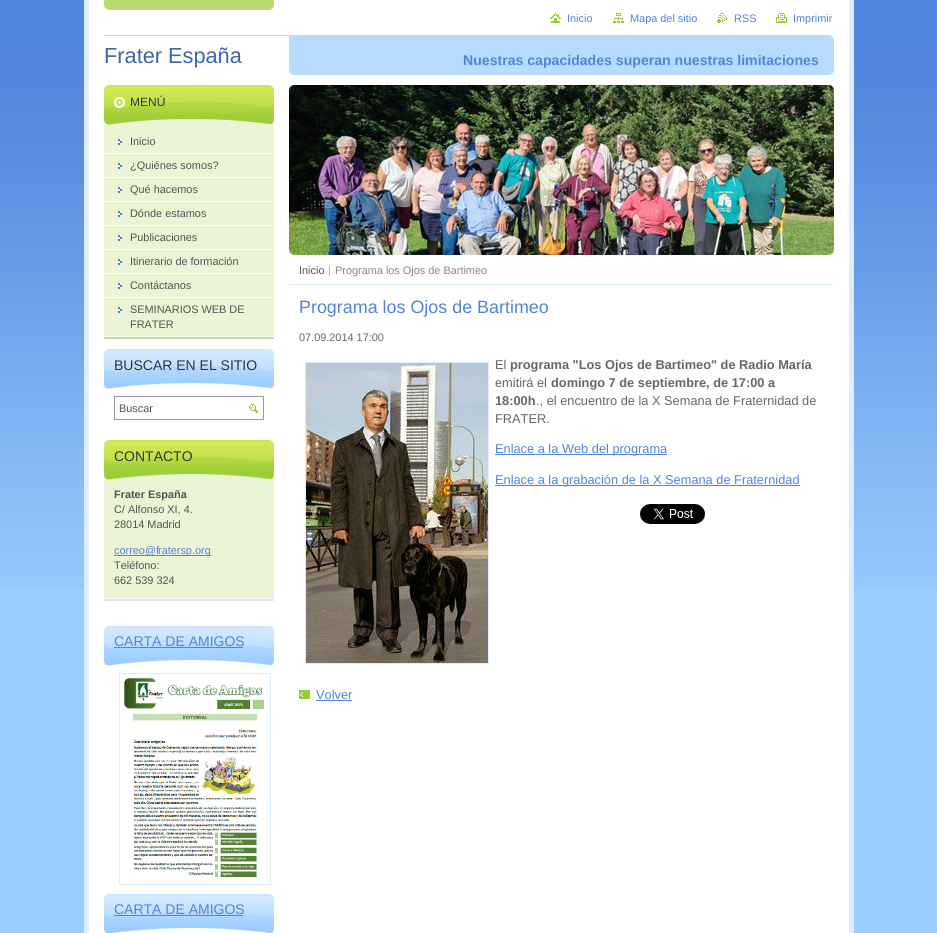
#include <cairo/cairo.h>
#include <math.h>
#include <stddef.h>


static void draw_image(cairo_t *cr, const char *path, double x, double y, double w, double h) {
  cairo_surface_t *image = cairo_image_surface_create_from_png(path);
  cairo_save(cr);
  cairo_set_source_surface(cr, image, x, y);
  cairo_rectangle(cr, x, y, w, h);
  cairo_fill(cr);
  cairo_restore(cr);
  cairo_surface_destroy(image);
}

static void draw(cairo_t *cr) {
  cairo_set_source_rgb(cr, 153 / 255.0, 204 / 255.0, 1);
  cairo_paint(cr);
  draw_image(cr, "images/1.png", 0, 0, 937, 588);
  cairo_set_source_rgb(cr, 1, 1, 1);
  cairo_rectangle(cr, 89, 0, 760, 933);
  cairo_fill(cr);
  draw_image(cr, "images/2.png", 104, 0, 170, 10);
  cairo_set_source_rgb(cr, 219 / 255.0, 237 / 255.0, 1);
  cairo_rectangle(cr, 849, 0, 5, 933);
  cairo_fill(cr);
  cairo_rectangle(cr, 84, 0, 5, 933);
  cairo_fill(cr);
  draw_image(cr, "images/3.png", 550, 13, 11, 10);
  draw_image(cr, "images/4.png", 613, 13, 11, 10);
  draw_image(cr, "images/5.png", 717, 13, 10, 10);
  draw_image(cr, "images/6.png", 776, 13, 11, 10);
  draw_image(cr, "images/7.png", 104, 35, 730, 6);
  cairo_set_source_rgb(cr, 183 / 255.0, 219 / 255.0, 1);
  cairo_rectangle(cr, 289, 41, 545, 29);
  cairo_fill(cr);
  draw_image(cr, "images/8.png", 289, 70, 545, 5);
  cairo_set_source_rgb(cr, 194 / 255.0, 224 / 255.0, 132 / 255.0);
  cairo_rectangle(cr, 104, 337, 170, 2);
  cairo_fill(cr);
  cairo_set_source_rgb(cr, 235 / 255.0, 245 / 255.0, 214 / 255.0);
  cairo_rectangle(cr, 104, 125, 170, 211);
  cairo_fill(cr);
  cairo_set_source_rgb(cr, 159 / 255.0, 207 / 255.0, 54 / 255.0);
  cairo_rectangle(cr, 104, 115, 170, 4);
  cairo_fill(cr);
  draw_image(cr, "images/9.png", 104, 85, 170, 30);
  draw_image(cr, "images/10.png", 104, 119, 170, 6);
  draw_image(cr, "images/11.png", 118, 139, 4, 6);
  cairo_set_source_rgb(cr, 1, 1, 1);
  cairo_rectangle(cr, 104, 153, 170, 1);
  cairo_fill(cr);
  draw_image(cr, "images/11.png", 118, 163, 4, 6);
  cairo_rectangle(cr, 104, 177, 170, 1);
  cairo_fill(cr);
  draw_image(cr, "images/11.png", 118, 187, 4, 6);
  cairo_rectangle(cr, 104, 201, 170, 1);
  cairo_fill(cr);
  draw_image(cr, "images/11.png", 118, 211, 4, 6);
  cairo_rectangle(cr, 104, 225, 170, 1);
  cairo_fill(cr);
  draw_image(cr, "images/11.png", 118, 235, 4, 6);
  cairo_rectangle(cr, 104, 249, 170, 1);
  cairo_fill(cr);
  draw_image(cr, "images/11.png", 118, 259, 4, 6);
  cairo_rectangle(cr, 104, 273, 170, 1);
  cairo_fill(cr);
  draw_image(cr, "images/11.png", 118, 283, 4, 6);
  cairo_rectangle(cr, 104, 297, 170, 1);
  cairo_fill(cr);
  draw_image(cr, "images/11.png", 118, 307, 4, 6);
  cairo_set_source_rgb(cr, 159 / 255.0, 207 / 255.0, 1);
  cairo_rectangle(cr, 104, 380, 170, 4);
  cairo_fill(cr);
  draw_image(cr, "images/12.png", 104, 349, 170, 31);
  draw_image(cr, "images/13.png", 104, 383, 170, 6);
  cairo_rectangle(cr, 114.5, 396.5, 149, 23);
  cairo_set_source_rgb(cr, 153 / 255.0, 153 / 255.0, 153 / 255.0);
  cairo_set_line_width(cr, 1);
  cairo_stroke(cr);
  draw_image(cr, "images/14.png", 249, 404, 9, 9);
  cairo_set_source_rgb(cr, 226 / 255.0, 229 / 255.0, 232 / 255.0);
  cairo_rectangle(cr, 104, 599, 170, 2);
  cairo_fill(cr);
  cairo_set_source_rgb(cr, 235 / 255.0, 245 / 255.0, 214 / 255.0);
  cairo_rectangle(cr, 104, 480, 170, 118);
  cairo_fill(cr);
  cairo_set_source_rgb(cr, 159 / 255.0, 207 / 255.0, 54 / 255.0);
  cairo_rectangle(cr, 104, 470, 170, 5);
  cairo_fill(cr);
  draw_image(cr, "images/15.png", 104, 440, 170, 30);
  draw_image(cr, "images/16.png", 104, 474, 170, 6);
  cairo_set_source_rgb(cr, 81 / 255.0, 132 / 255.0, 219 / 255.0);
  cairo_rectangle(cr, 114, 555, 44, 1);
  cairo_fill(cr);
  cairo_rectangle(cr, 158, 555, 53, 1);
  cairo_fill(cr);
  draw_image(cr, "images/17.png", 104, 626, 170, 40);
  cairo_rectangle(cr, 114, 647, 129, 1);
  cairo_fill(cr);
  cairo_rectangle(cr, 119.5, 673.5, 151, 211);
  cairo_set_source_rgb(cr, 219 / 255.0, 237 / 255.0, 1);
  cairo_stroke(cr);
  draw_image(cr, "images/18.png", 123, 677, 141, 200);
  draw_image(cr, "images/19.png", 104, 894, 170, 39);
  cairo_set_source_rgb(cr, 81 / 255.0, 132 / 255.0, 219 / 255.0);
  cairo_rectangle(cr, 114, 915, 129, 1);
  cairo_fill(cr);
  draw_image(cr, "images/20.png", 289, 85, 545, 170);
  draw_image(cr, "images/21.png", 289, 85, 545, 170);
  cairo_set_source_rgb(cr, 219 / 255.0, 237 / 255.0, 1);
  cairo_rectangle(cr, 289, 284, 545, 1);
  cairo_fill(cr);
  cairo_rectangle(cr, 305.5, 362.5, 183, 301);
  cairo_stroke(cr);
  draw_image(cr, "images/22.png", 306, 363, 182, 300);
  cairo_set_source_rgb(cr, 81 / 255.0, 132 / 255.0, 219 / 255.0);
  cairo_rectangle(cr, 495, 454, 172, 1);
  cairo_fill(cr);
  cairo_rectangle(cr, 495, 485, 305, 1);
  cairo_fill(cr);
  draw_image(cr, "images/23.png", 640, 504, 65, 20);
  draw_image(cr, "images/24.png", 299, 690, 11, 9);
  cairo_rectangle(cr, 316, 700, 36, 1);
  cairo_fill(cr);
  cairo_select_font_face(cr, "Liberation Sans", CAIRO_FONT_SLANT_NORMAL, CAIRO_FONT_WEIGHT_NORMAL);
  cairo_set_font_size(cr, 10.9);
  cairo_move_to(cr, 567, 22);
  cairo_show_text(cr, "Inicio");
  cairo_move_to(cr, 630, 22);
  cairo_show_text(cr, "Mapa del sitio");
  cairo_move_to(cr, 734, 22);
  cairo_show_text(cr, "RSS");
  cairo_move_to(cr, 793, 22);
  cairo_show_text(cr, "Imprimir");
  cairo_set_font_size(cr, 21.75);
  cairo_set_source_rgb(cr, 62 / 255.0, 101 / 255.0, 168 / 255.0);
  cairo_move_to(cr, 104, 63);
  cairo_show_text(cr, "Frater España");
  cairo_select_font_face(cr, "Liberation Sans", CAIRO_FONT_SLANT_NORMAL, CAIRO_FONT_WEIGHT_BOLD);
  cairo_set_font_size(cr, 14.1);
  cairo_set_source_rgb(cr, 81 / 255.0, 132 / 255.0, 219 / 255.0);
  cairo_move_to(cr, 463, 65);
  cairo_show_text(cr, "Nuestras capacidades superan nuestras limitaciones");
  cairo_select_font_face(cr, "Liberation Sans", CAIRO_FONT_SLANT_NORMAL, CAIRO_FONT_WEIGHT_NORMAL);
  cairo_set_font_size(cr, 12);
  cairo_set_source_rgb(cr, 51 / 255.0, 51 / 255.0, 51 / 255.0);
  cairo_move_to(cr, 130, 106);
  cairo_show_text(cr, "MENÚ");
  cairo_set_font_size(cr, 10.9);
  cairo_set_source_rgb(cr, 83 / 255.0, 83 / 255.0, 83 / 255.0);
  cairo_move_to(cr, 130, 145);
  cairo_show_text(cr, "Inicio");
  cairo_move_to(cr, 130, 169);
  cairo_show_text(cr, "¿Quiénes somos?");
  cairo_move_to(cr, 130, 193);
  cairo_show_text(cr, "Qué hacemos");
  cairo_move_to(cr, 130, 217);
  cairo_show_text(cr, "Dónde estamos");
  cairo_move_to(cr, 130, 241);
  cairo_show_text(cr, "Publicaciones");
  cairo_move_to(cr, 130, 265);
  cairo_show_text(cr, "Itinerario de formación");
  cairo_move_to(cr, 130, 289);
  cairo_show_text(cr, "Contáctanos");
  cairo_move_to(cr, 130, 313);
  cairo_show_text(cr, "SEMINARIOS WEB DE");
  cairo_move_to(cr, 130, 328);
  cairo_show_text(cr, "FRATER");
  cairo_set_font_size(cr, 14);
  cairo_set_source_rgb(cr, 51 / 255.0, 51 / 255.0, 51 / 255.0);
  cairo_move_to(cr, 114, 370);
  cairo_show_text(cr, "BUSCAR EN EL SITIO");
  cairo_set_font_size(cr, 10.9);
  cairo_set_source_rgb(cr, 83 / 255.0, 83 / 255.0, 83 / 255.0);
  cairo_move_to(cr, 119, 412);
  cairo_show_text(cr, "Buscar");
  cairo_set_font_size(cr, 14);
  cairo_set_source_rgb(cr, 51 / 255.0, 51 / 255.0, 51 / 255.0);
  cairo_move_to(cr, 114, 461);
  cairo_show_text(cr, "CONTACTO");
  cairo_select_font_face(cr, "Liberation Sans", CAIRO_FONT_SLANT_NORMAL, CAIRO_FONT_WEIGHT_BOLD);
  cairo_set_font_size(cr, 10.9);
  cairo_set_source_rgb(cr, 83 / 255.0, 83 / 255.0, 83 / 255.0);
  cairo_move_to(cr, 114, 498);
  cairo_show_text(cr, "Frater España");
  cairo_select_font_face(cr, "Liberation Sans", CAIRO_FONT_SLANT_NORMAL, CAIRO_FONT_WEIGHT_NORMAL);
  cairo_move_to(cr, 114, 513);
  cairo_show_text(cr, "C/ Alfonso XI, 4.");
  cairo_move_to(cr, 114, 528);
  cairo_show_text(cr, "28014 Madrid");
  cairo_set_source_rgb(cr, 81 / 255.0, 132 / 255.0, 219 / 255.0);
  cairo_move_to(cr, 114, 554);
  cairo_show_text(cr, "correo@f");
  cairo_move_to(cr, 158, 554);
  cairo_show_text(cr, "ratersp.org");
  cairo_set_source_rgb(cr, 83 / 255.0, 83 / 255.0, 83 / 255.0);
  cairo_move_to(cr, 114, 569);
  cairo_show_text(cr, "Teléfono:");
  cairo_move_to(cr, 114, 584);
  cairo_show_text(cr, "662 539 324");
  cairo_set_font_size(cr, 14);
  cairo_set_source_rgb(cr, 81 / 255.0, 132 / 255.0, 219 / 255.0);
  cairo_move_to(cr, 114, 646);
  cairo_show_text(cr, "CARTA DE AMIGOS");
  cairo_move_to(cr, 114, 914);
  cairo_show_text(cr, "CARTA DE AMIGOS");
  cairo_set_font_size(cr, 10.9);
  cairo_set_source_rgb(cr, 83 / 255.0, 83 / 255.0, 83 / 255.0);
  cairo_move_to(cr, 299, 274);
  cairo_show_text(cr, "Inicio");
  cairo_set_source_rgb(cr, 153 / 255.0, 204 / 255.0, 51 / 255.0);
  cairo_move_to(cr, 328, 274);
  cairo_show_text(cr, "|");
  cairo_set_source_rgb(cr, 135 / 255.0, 135 / 255.0, 135 / 255.0);
  cairo_move_to(cr, 335, 274);
  cairo_show_text(cr, "Programa los Ojos de Bartimeo");
  cairo_set_font_size(cr, 17.9);
  cairo_set_source_rgb(cr, 81 / 255.0, 132 / 255.0, 219 / 255.0);
  cairo_move_to(cr, 299, 313);
  cairo_show_text(cr, "Programa los Ojos de Bartimeo");
  cairo_set_font_size(cr, 10.9);
  cairo_set_source_rgb(cr, 102 / 255.0, 102 / 255.0, 102 / 255.0);
  cairo_move_to(cr, 299, 341);
  cairo_show_text(cr, "07.09.2014 17:00");
  cairo_set_font_size(cr, 12.8);
  cairo_move_to(cr, 495, 369);
  cairo_show_text(cr, "El");
  cairo_select_font_face(cr, "Liberation Sans", CAIRO_FONT_SLANT_NORMAL, CAIRO_FONT_WEIGHT_BOLD);
  cairo_move_to(cr, 510, 369);
  cairo_show_text(cr, "programa \"Los Ojos de Bartimeo\" de Radio María");
  cairo_select_font_face(cr, "Liberation Sans", CAIRO_FONT_SLANT_NORMAL, CAIRO_FONT_WEIGHT_NORMAL);
  cairo_move_to(cr, 495, 387);
  cairo_show_text(cr, "emitirá el");
  cairo_select_font_face(cr, "Liberation Sans", CAIRO_FONT_SLANT_NORMAL, CAIRO_FONT_WEIGHT_BOLD);
  cairo_move_to(cr, 551, 387);
  cairo_show_text(cr, "domingo 7 de septiembre, de 17:00 a");
  cairo_move_to(cr, 495, 405);
  cairo_show_text(cr, "18:00h");
  cairo_select_font_face(cr, "Liberation Sans", CAIRO_FONT_SLANT_NORMAL, CAIRO_FONT_WEIGHT_NORMAL);
  cairo_move_to(cr, 536, 405);
  cairo_show_text(cr, "., el encuentro de la X Semana de Fraternidad de");
  cairo_move_to(cr, 495, 423);
  cairo_show_text(cr, "FRATER.");
  cairo_set_source_rgb(cr, 81 / 255.0, 132 / 255.0, 219 / 255.0);
  cairo_move_to(cr, 495, 453);
  cairo_show_text(cr, "Enlace a la Web del programa");
  cairo_move_to(cr, 495, 484);
  cairo_show_text(cr, "Enlace a la grabación de la X Semana de Fraternidad");
  cairo_move_to(cr, 316, 699);
  cairo_show_text(cr, "Volver");
}

int main(void) {
  cairo_surface_t *surface = cairo_image_surface_create(CAIRO_FORMAT_RGB24, 937, 933);
  cairo_t *cr = cairo_create(surface);
  cairo_font_options_t *options = cairo_font_options_create();
  cairo_font_options_set_hint_metrics(options, CAIRO_HINT_METRICS_OFF);
  cairo_font_options_set_hint_style(options, CAIRO_HINT_STYLE_NONE);
  cairo_set_font_options(cr, options);
  cairo_set_miter_limit(cr, 4);
  draw(cr);
  cairo_surface_write_to_png(surface, "out.png");
  cairo_font_options_destroy(options);
  cairo_destroy(cr);
  cairo_surface_destroy(surface);
  return 0;
}
